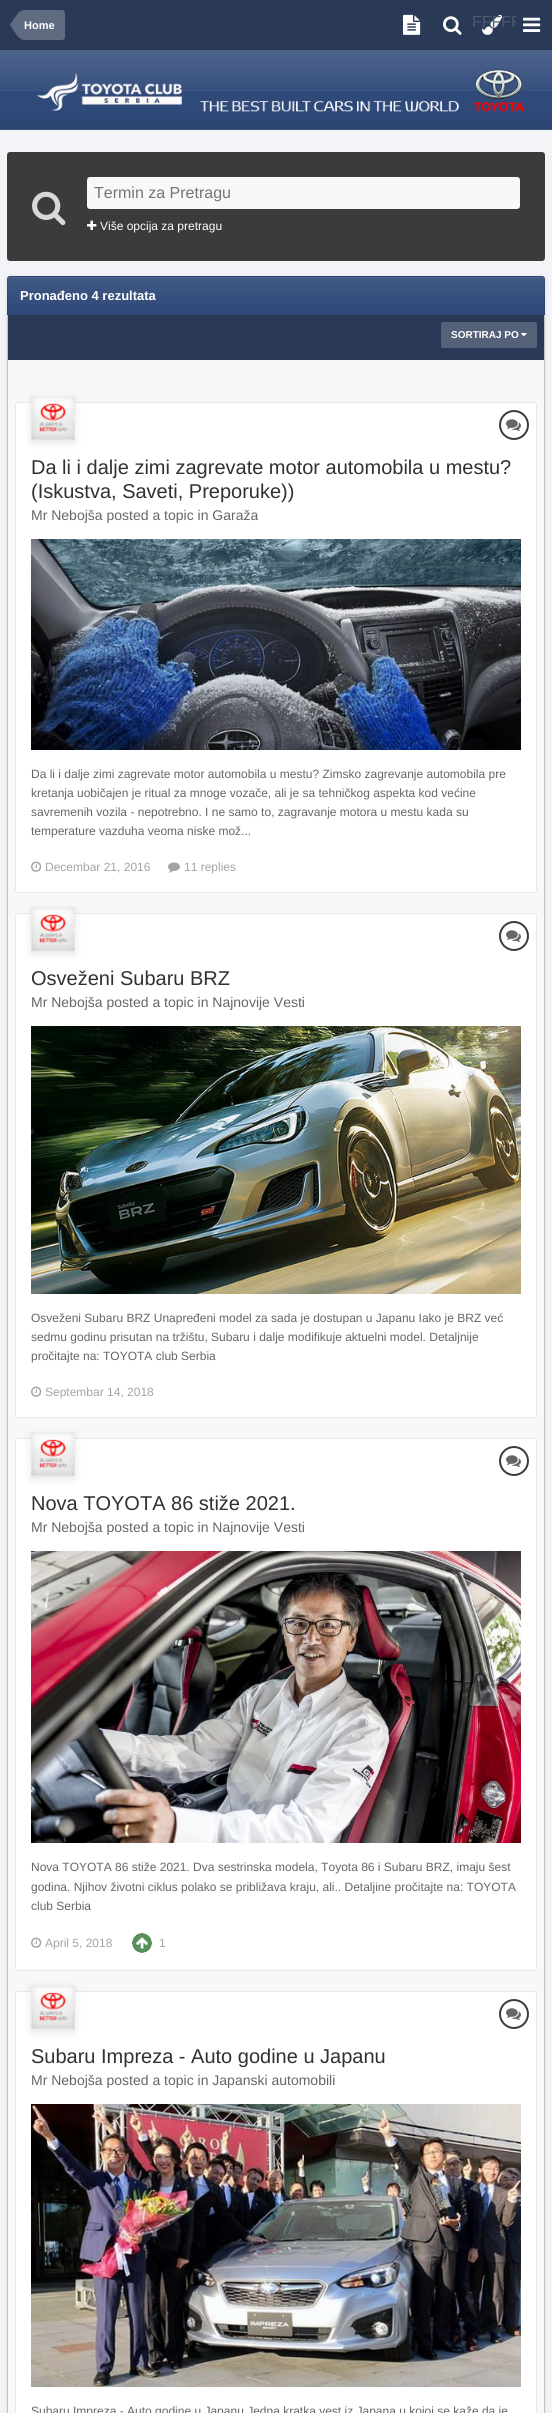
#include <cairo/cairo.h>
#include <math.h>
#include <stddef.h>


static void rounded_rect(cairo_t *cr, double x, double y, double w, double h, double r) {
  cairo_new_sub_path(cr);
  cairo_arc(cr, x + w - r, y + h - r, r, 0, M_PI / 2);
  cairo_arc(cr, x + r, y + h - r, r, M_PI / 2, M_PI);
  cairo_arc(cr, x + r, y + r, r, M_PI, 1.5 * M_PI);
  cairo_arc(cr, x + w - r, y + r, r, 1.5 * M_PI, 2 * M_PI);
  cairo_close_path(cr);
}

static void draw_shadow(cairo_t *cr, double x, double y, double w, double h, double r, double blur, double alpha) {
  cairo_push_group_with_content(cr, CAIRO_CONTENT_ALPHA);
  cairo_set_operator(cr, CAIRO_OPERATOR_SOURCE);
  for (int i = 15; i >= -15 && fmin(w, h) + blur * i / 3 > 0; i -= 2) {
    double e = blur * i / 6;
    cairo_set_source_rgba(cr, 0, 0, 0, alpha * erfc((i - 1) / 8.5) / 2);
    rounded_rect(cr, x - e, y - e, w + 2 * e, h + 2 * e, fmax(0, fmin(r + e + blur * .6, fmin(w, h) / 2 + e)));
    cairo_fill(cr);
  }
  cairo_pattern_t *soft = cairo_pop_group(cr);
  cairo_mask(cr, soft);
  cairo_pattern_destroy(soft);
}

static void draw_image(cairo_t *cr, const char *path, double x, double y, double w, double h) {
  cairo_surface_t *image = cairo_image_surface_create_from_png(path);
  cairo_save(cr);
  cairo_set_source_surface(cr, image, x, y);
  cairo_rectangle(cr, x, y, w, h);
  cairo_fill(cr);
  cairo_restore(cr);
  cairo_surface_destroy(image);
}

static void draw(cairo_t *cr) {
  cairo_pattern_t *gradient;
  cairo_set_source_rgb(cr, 47 / 255.0, 73 / 255.0, 121 / 255.0);
  cairo_paint(cr);
  cairo_set_source_rgb(cr, 42 / 255.0, 57 / 255.0, 86 / 255.0);
  cairo_rectangle(cr, 0, 0, 552, 50);
  cairo_fill(cr);
  cairo_set_source_rgb(cr, 95 / 255.0, 107 / 255.0, 128 / 255.0);
  cairo_new_path(cr);
  cairo_move_to(cr, 24, 10);
  cairo_line_to(cr, 62, 10);
  cairo_curve_to(cr, 63.5, 10, 65, 11.5, 65, 13);
  cairo_line_to(cr, 65, 37);
  cairo_curve_to(cr, 65, 38.5, 63.5, 40, 62, 40);
  cairo_line_to(cr, 24, 40);
  cairo_close_path(cr);
  cairo_fill(cr);
  cairo_new_path(cr);
  cairo_move_to(cr, 24, 25);
  cairo_line_to(cr, 24, 40);
  cairo_curve_to(cr, 22, 40, 19.5, 38.5, 17, 35.5);
  cairo_line_to(cr, 10, 25);
  cairo_close_path(cr);
  cairo_move_to(cr, 24, 25);
  cairo_line_to(cr, 10, 25);
  cairo_curve_to(cr, 10, 24, 18.5, 12.5, 19, 12);
  cairo_curve_to(cr, 20.5, 11, 22, 10, 24, 10);
  cairo_close_path(cr);
  cairo_fill(cr);
  draw_image(cr, "images/1.png", 403, 14, 18, 21);
  draw_image(cr, "images/2.png", 443, 16, 19, 19);
  draw_image(cr, "images/3.png", 482, 14, 20, 21);
  draw_image(cr, "images/4.png", 523, 17, 18, 15);
  cairo_set_source_rgba(cr, 1, 1, 1, 0.94);
  cairo_rectangle(cr, 0, 130, 552, 2283);
  cairo_fill(cr);
  gradient = cairo_pattern_create_linear(276, 50, 276, 130);
  cairo_pattern_add_color_stop_rgba(gradient, 0, 78 / 255.0, 100 / 255.0, 141 / 255.0, 1);
  cairo_pattern_add_color_stop_rgba(gradient, 0.5, 55 / 255.0, 80 / 255.0, 126 / 255.0, 1);
  cairo_pattern_add_color_stop_rgba(gradient, 0.5, 62 / 255.0, 86 / 255.0, 130 / 255.0, 1);
  cairo_pattern_add_color_stop_rgba(gradient, 0.51, 62 / 255.0, 86 / 255.0, 130 / 255.0, 1);
  cairo_pattern_add_color_stop_rgba(gradient, 0.51, 47 / 255.0, 73 / 255.0, 121 / 255.0, 1);
  cairo_pattern_add_color_stop_rgba(gradient, 0.75, 47 / 255.0, 73 / 255.0, 121 / 255.0, 1);
  cairo_pattern_add_color_stop_rgba(gradient, 1, 43 / 255.0, 67 / 255.0, 111 / 255.0, 1);
  cairo_set_source(cr, gradient);
  cairo_pattern_destroy(gradient);
  cairo_rectangle(cr, 0, 50, 552, 79);
  cairo_fill(cr);
  cairo_set_source_rgb(cr, 64 / 255.0, 86 / 255.0, 125 / 255.0);
  cairo_rectangle(cr, 0, 129, 552, 1);
  cairo_fill(cr);
  draw_image(cr, "images/5.png", 37, 69, 488, 43);
  cairo_set_source_rgb(cr, 59 / 255.0, 59 / 255.0, 59 / 255.0);
  rounded_rect(cr, 7, 152, 538, 109, 3);
  cairo_fill(cr);
  draw_image(cr, "images/6.png", 32, 191, 34, 35);
  cairo_set_source_rgb(cr, 1, 1, 1);
  rounded_rect(cr, 87, 177, 433, 32, 3);
  cairo_fill(cr);
  cairo_set_source_rgba(cr, 102 / 255.0, 102 / 255.0, 102 / 255.0, 0.05);
  cairo_rectangle(cr, 87, 177, 433, 32);
  cairo_fill(cr);
  draw_image(cr, "images/7.png", 87, 220, 10, 10);
  cairo_set_source_rgb(cr, 0, 0, 0);
  draw_shadow(cr, 7, 277, 538, 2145, 3, 2, 0.1);
  rounded_rect(cr, 7.5, 276.5, 537, 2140, 2.5);
  cairo_set_source_rgba(cr, 0, 0, 0, 0.15);
  cairo_set_line_width(cr, 1);
  cairo_stroke(cr);
  cairo_set_source_rgb(cr, 47 / 255.0, 73 / 255.0, 121 / 255.0);
  cairo_new_path(cr);
  cairo_move_to(cr, 10, 276);
  cairo_line_to(cr, 542, 276);
  cairo_curve_to(cr, 543.5, 276, 545, 277.5, 545, 279);
  cairo_line_to(cr, 545, 315);
  cairo_line_to(cr, 7, 315);
  cairo_line_to(cr, 7, 279);
  cairo_curve_to(cr, 7, 277.5, 8.5, 276, 10, 276);
  cairo_close_path(cr);
  cairo_fill(cr);
  gradient = cairo_pattern_create_linear(276, 277, 276, 315);
  cairo_pattern_add_color_stop_rgba(gradient, 0, 1, 1, 1, 0.08);
  cairo_pattern_add_color_stop_rgba(gradient, 1, 1, 1, 1, 0);
  cairo_set_source(cr, gradient);
  cairo_pattern_destroy(gradient);
  cairo_rectangle(cr, 7, 277, 538, 28);
  cairo_fill(cr);
  cairo_set_source_rgb(cr, 82 / 255.0, 104 / 255.0, 144 / 255.0);
  cairo_new_path(cr);
  cairo_move_to(cr, 10, 278);
  cairo_line_to(cr, 542, 278);
  cairo_curve_to(cr, 543, 278, 544, 279, 544, 280);
  cairo_curve_to(cr, 544, 279, 544, 277, 542, 277);
  cairo_line_to(cr, 10, 277);
  cairo_line_to(cr, 8, 278);
  cairo_line_to(cr, 8, 280);
  cairo_curve_to(cr, 8, 279, 9, 278, 10, 278);
  cairo_close_path(cr);
  cairo_fill(cr);
  cairo_set_source_rgba(cr, 0, 0, 0, 0.1);
  cairo_set_fill_rule(cr, CAIRO_FILL_RULE_EVEN_ODD);
  cairo_new_path(cr);
  cairo_move_to(cr, 10, 276);
  cairo_line_to(cr, 542, 276);
  cairo_curve_to(cr, 544, 276, 545, 277, 545, 279);
  cairo_line_to(cr, 545, 315);
  cairo_line_to(cr, 7, 315);
  cairo_line_to(cr, 7, 279);
  cairo_curve_to(cr, 7, 277, 8, 276, 10, 276);
  cairo_close_path(cr);
  cairo_move_to(cr, 10, 277);
  cairo_line_to(cr, 542, 277);
  cairo_curve_to(cr, 543, 277, 544, 278, 544, 279);
  cairo_line_to(cr, 544, 315);
  cairo_line_to(cr, 8, 315);
  cairo_line_to(cr, 8, 279);
  cairo_curve_to(cr, 8, 278, 9, 277, 10, 277);
  cairo_close_path(cr);
  cairo_fill(cr);
  cairo_set_source_rgb(cr, 42 / 255.0, 57 / 255.0, 86 / 255.0);
  cairo_rectangle(cr, 8, 315, 536, 45);
  cairo_fill(cr);
  cairo_set_source_rgb(cr, 85 / 255.0, 97 / 255.0, 120 / 255.0);
  rounded_rect(cr, 441, 322, 96, 26, 2);
  cairo_fill(cr);
  draw_image(cr, "images/8.png", 521, 333, 6, 4);
  cairo_set_source_rgb(cr, 248 / 255.0, 248 / 255.0, 248 / 255.0);
  cairo_rectangle(cr, 8, 360, 536, 2053);
  cairo_fill(cr);
  cairo_set_source_rgb(cr, 1, 1, 1);
  rounded_rect(cr, 15, 402, 522, 491, 3);
  cairo_fill(cr);
  rounded_rect(cr, 15.5, 402.5, 521, 490, 2.5);
  cairo_set_source_rgba(cr, 102 / 255.0, 102 / 255.0, 102 / 255.0, 0.15);
  cairo_stroke(cr);
  draw_image(cr, "images/9.png", 31, 396, 44, 44);
  cairo_save(cr);
  cairo_new_path(cr);
  cairo_move_to(cr, 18, 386);
  cairo_line_to(cr, 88, 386);
  cairo_line_to(cr, 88, 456);
  cairo_line_to(cr, 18, 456);
  cairo_close_path(cr);
  cairo_move_to(cr, 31, 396);
  cairo_line_to(cr, 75, 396);
  cairo_line_to(cr, 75, 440);
  cairo_line_to(cr, 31, 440);
  cairo_close_path(cr);
  cairo_clip(cr);
  cairo_set_source_rgb(cr, 0, 0, 0);
  draw_shadow(cr, 31, 399, 44, 44, 0, 4, 0.1);
  cairo_restore(cr);
  cairo_arc(cr, 514, 425, 14, 0, 2 * M_PI);
  cairo_set_source_rgb(cr, 59 / 255.0, 59 / 255.0, 59 / 255.0);
  cairo_set_line_width(cr, 2);
  cairo_stroke(cr);
  draw_image(cr, "images/10.png", 506, 419, 15, 12);
  draw_image(cr, "images/11.png", 31, 539, 490, 211);
  draw_image(cr, "images/12.png", 31, 861, 11, 11);
  draw_image(cr, "images/13.png", 168, 862, 12, 11);
  cairo_set_source_rgb(cr, 1, 1, 1);
  rounded_rect(cr, 15, 913, 522, 505, 3);
  cairo_fill(cr);
  rounded_rect(cr, 15.5, 913.5, 521, 504, 2.5);
  cairo_set_source_rgba(cr, 102 / 255.0, 102 / 255.0, 102 / 255.0, 0.15);
  cairo_set_line_width(cr, 1);
  cairo_stroke(cr);
  draw_image(cr, "images/9.png", 31, 907, 44, 44);
  cairo_save(cr);
  cairo_new_path(cr);
  cairo_move_to(cr, 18, 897);
  cairo_line_to(cr, 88, 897);
  cairo_line_to(cr, 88, 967);
  cairo_line_to(cr, 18, 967);
  cairo_close_path(cr);
  cairo_move_to(cr, 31, 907);
  cairo_line_to(cr, 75, 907);
  cairo_line_to(cr, 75, 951);
  cairo_line_to(cr, 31, 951);
  cairo_close_path(cr);
  cairo_clip(cr);
  cairo_set_source_rgb(cr, 0, 0, 0);
  draw_shadow(cr, 31, 910, 44, 44, 0, 4, 0.1);
  cairo_restore(cr);
  cairo_arc(cr, 514, 936, 14, 0, 2 * M_PI);
  cairo_set_source_rgb(cr, 59 / 255.0, 59 / 255.0, 59 / 255.0);
  cairo_set_line_width(cr, 2);
  cairo_stroke(cr);
  draw_image(cr, "images/10.png", 506, 930, 15, 12);
  draw_image(cr, "images/14.png", 31, 1026, 490, 268);
  draw_image(cr, "images/12.png", 31, 1386, 11, 11);
  cairo_set_source_rgb(cr, 1, 1, 1);
  rounded_rect(cr, 15, 1438, 522, 533, 3);
  cairo_fill(cr);
  rounded_rect(cr, 15.5, 1438.5, 521, 532, 2.5);
  cairo_set_source_rgba(cr, 102 / 255.0, 102 / 255.0, 102 / 255.0, 0.15);
  cairo_set_line_width(cr, 1);
  cairo_stroke(cr);
  draw_image(cr, "images/9.png", 31, 1432, 44, 44);
  cairo_save(cr);
  cairo_new_path(cr);
  cairo_move_to(cr, 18, 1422);
  cairo_line_to(cr, 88, 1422);
  cairo_line_to(cr, 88, 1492);
  cairo_line_to(cr, 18, 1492);
  cairo_close_path(cr);
  cairo_move_to(cr, 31, 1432);
  cairo_line_to(cr, 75, 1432);
  cairo_line_to(cr, 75, 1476);
  cairo_line_to(cr, 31, 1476);
  cairo_close_path(cr);
  cairo_clip(cr);
  cairo_set_source_rgb(cr, 0, 0, 0);
  draw_shadow(cr, 31, 1435, 44, 44, 0, 4, 0.1);
  cairo_restore(cr);
  cairo_arc(cr, 514, 1461, 14, 0, 2 * M_PI);
  cairo_set_source_rgb(cr, 59 / 255.0, 59 / 255.0, 59 / 255.0);
  cairo_set_line_width(cr, 2);
  cairo_stroke(cr);
  draw_image(cr, "images/10.png", 506, 1455, 15, 12);
  draw_image(cr, "images/15.png", 31, 1551, 490, 292);
  draw_image(cr, "images/12.png", 31, 1937, 11, 11);
  draw_image(cr, "images/16.png", 132, 1933, 20, 20);
  cairo_set_source_rgb(cr, 1, 1, 1);
  rounded_rect(cr, 15, 1991, 522, 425, 3);
  cairo_fill(cr);
  rounded_rect(cr, 15.5, 1991.5, 521, 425, 2.5);
  cairo_set_source_rgba(cr, 102 / 255.0, 102 / 255.0, 102 / 255.0, 0.15);
  cairo_set_line_width(cr, 1);
  cairo_stroke(cr);
  draw_image(cr, "images/9.png", 31, 1985, 44, 44);
  cairo_save(cr);
  cairo_new_path(cr);
  cairo_move_to(cr, 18, 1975);
  cairo_line_to(cr, 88, 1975);
  cairo_line_to(cr, 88, 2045);
  cairo_line_to(cr, 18, 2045);
  cairo_close_path(cr);
  cairo_move_to(cr, 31, 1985);
  cairo_line_to(cr, 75, 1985);
  cairo_line_to(cr, 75, 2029);
  cairo_line_to(cr, 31, 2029);
  cairo_close_path(cr);
  cairo_clip(cr);
  cairo_set_source_rgb(cr, 0, 0, 0);
  draw_shadow(cr, 31, 1988, 44, 44, 0, 4, 0.1);
  cairo_restore(cr);
  cairo_arc(cr, 514, 2014, 14, 0, 2 * M_PI);
  cairo_set_source_rgb(cr, 59 / 255.0, 59 / 255.0, 59 / 255.0);
  cairo_set_line_width(cr, 2);
  cairo_stroke(cr);
  draw_image(cr, "images/10.png", 506, 2008, 15, 12);
  draw_image(cr, "images/17.png", 31, 2104, 490, 283);
  cairo_select_font_face(cr, "Liberation Sans", CAIRO_FONT_SLANT_NORMAL, CAIRO_FONT_WEIGHT_BOLD);
  cairo_set_font_size(cr, 11);
  cairo_set_source_rgb(cr, 1, 1, 1);
  cairo_move_to(cr, 24, 29);
  cairo_show_text(cr, "Home");
  cairo_save(cr);
  cairo_set_fill_rule(cr, CAIRO_FILL_RULE_WINDING);
  cairo_rectangle(cr, 472, 13, 44, 18);
  cairo_clip(cr);
  cairo_select_font_face(cr, "Liberation Sans", CAIRO_FONT_SLANT_NORMAL, CAIRO_FONT_WEIGHT_NORMAL);
  cairo_set_font_size(cr, 16);
  cairo_set_source_rgb(cr, 76 / 255.0, 89 / 255.0, 113 / 255.0);
  cairo_move_to(cr, 472, 27);
  cairo_show_text(cr, "FFFFF");
  cairo_restore(cr);
  cairo_select_font_face(cr, "Liberation Sans", CAIRO_FONT_SLANT_NORMAL, CAIRO_FONT_WEIGHT_NORMAL);
  cairo_set_font_size(cr, 16);
  cairo_set_source_rgb(cr, 117 / 255.0, 117 / 255.0, 117 / 255.0);
  cairo_move_to(cr, 94, 198);
  cairo_show_text(cr, "Termin za Pretragu");
  cairo_set_font_size(cr, 12);
  cairo_set_source_rgb(cr, 1, 1, 1);
  cairo_move_to(cr, 100, 230);
  cairo_show_text(cr, "Više opcija za pretragu");
  cairo_select_font_face(cr, "Liberation Sans", CAIRO_FONT_SLANT_NORMAL, CAIRO_FONT_WEIGHT_BOLD);
  cairo_set_font_size(cr, 13);
  cairo_move_to(cr, 20, 300);
  cairo_show_text(cr, "Pronađeno 4 rezultata");
  cairo_set_font_size(cr, 10);
  cairo_move_to(cr, 451, 338);
  cairo_show_text(cr, "SORTIRAJ PO");
  cairo_select_font_face(cr, "Liberation Sans", CAIRO_FONT_SLANT_NORMAL, CAIRO_FONT_WEIGHT_NORMAL);
  cairo_set_font_size(cr, 20);
  cairo_set_source_rgb(cr, 49 / 255.0, 49 / 255.0, 49 / 255.0);
  cairo_move_to(cr, 31, 474);
  cairo_show_text(cr, "Da li i dalje zimi zagrevate motor automobila u mestu?");
  cairo_move_to(cr, 31, 498);
  cairo_show_text(cr, "(Iskustva, Saveti, Preporuke))");
  cairo_set_font_size(cr, 14);
  cairo_set_source_rgb(cr, 102 / 255.0, 102 / 255.0, 102 / 255.0);
  cairo_move_to(cr, 31, 520);
  cairo_show_text(cr, "Mr Nebojša posted a topic in Garaža");
  cairo_set_font_size(cr, 12);
  cairo_move_to(cr, 31, 778);
  cairo_show_text(cr, "Da li i dalje zimi zagrevate motor automobila u mestu? Zimsko zagrevanje automobila pre");
  cairo_move_to(cr, 31, 797);
  cairo_show_text(cr, "kretanja uobičajen je ritual za mnoge vozače, ali je sa tehničkog aspekta kod većine");
  cairo_move_to(cr, 31, 816);
  cairo_show_text(cr, "savremenih vozila - nepotrebno. I ne samo to, zagravanje motora u mestu kada su");
  cairo_move_to(cr, 31, 835);
  cairo_show_text(cr, "temperature vazduha veoma niske mož...");
  cairo_set_source_rgb(cr, 164 / 255.0, 164 / 255.0, 164 / 255.0);
  cairo_move_to(cr, 45, 871);
  cairo_show_text(cr, "Decembar 21, 2016");
  cairo_move_to(cr, 184, 871);
  cairo_show_text(cr, "11 replies");
  cairo_set_font_size(cr, 20);
  cairo_set_source_rgb(cr, 49 / 255.0, 49 / 255.0, 49 / 255.0);
  cairo_move_to(cr, 31, 985);
  cairo_show_text(cr, "Osveženi Subaru BRZ");
  cairo_set_font_size(cr, 14);
  cairo_set_source_rgb(cr, 102 / 255.0, 102 / 255.0, 102 / 255.0);
  cairo_move_to(cr, 31, 1007);
  cairo_show_text(cr, "Mr Nebojša posted a topic in Najnovije Vesti");
  cairo_set_font_size(cr, 12);
  cairo_move_to(cr, 31, 1322);
  cairo_show_text(cr, "Osveženi Subaru BRZ Unapređeni model za sada je dostupan u Japanu Iako je BRZ već");
  cairo_move_to(cr, 31, 1341);
  cairo_show_text(cr, "sedmu godinu prisutan na tržištu, Subaru i dalje modifikuje aktuelni model. Detaljnije");
  cairo_move_to(cr, 31, 1360);
  cairo_show_text(cr, "pročitajte na: TOYOTA club Serbia");
  cairo_set_source_rgb(cr, 164 / 255.0, 164 / 255.0, 164 / 255.0);
  cairo_move_to(cr, 45, 1396);
  cairo_show_text(cr, "Septembar 14, 2018");
  cairo_set_font_size(cr, 20);
  cairo_set_source_rgb(cr, 49 / 255.0, 49 / 255.0, 49 / 255.0);
  cairo_move_to(cr, 31, 1510);
  cairo_show_text(cr, "Nova TOYOTA 86 stiže 2021.");
  cairo_set_font_size(cr, 14);
  cairo_set_source_rgb(cr, 102 / 255.0, 102 / 255.0, 102 / 255.0);
  cairo_move_to(cr, 31, 1532);
  cairo_show_text(cr, "Mr Nebojša posted a topic in Najnovije Vesti");
  cairo_set_font_size(cr, 12);
  cairo_move_to(cr, 31, 1871);
  cairo_show_text(cr, "Nova TOYOTA 86 stiže 2021. Dva sestrinska modela, Toyota 86 i Subaru BRZ, imaju šest");
  cairo_move_to(cr, 31, 1891);
  cairo_show_text(cr, "godina. Njihov životni ciklus polako se približava kraju, ali.. Detaljine pročitajte na: TOYOTA");
  cairo_move_to(cr, 31, 1910);
  cairo_show_text(cr, "club Serbia");
  cairo_set_source_rgb(cr, 164 / 255.0, 164 / 255.0, 164 / 255.0);
  cairo_move_to(cr, 45, 1947);
  cairo_show_text(cr, "April 5, 2018");
  cairo_move_to(cr, 159, 1947);
  cairo_show_text(cr, "1");
  cairo_set_font_size(cr, 20);
  cairo_set_source_rgb(cr, 49 / 255.0, 49 / 255.0, 49 / 255.0);
  cairo_move_to(cr, 31, 2063);
  cairo_show_text(cr, "Subaru Impreza - Auto godine u Japanu");
  cairo_set_font_size(cr, 14);
  cairo_set_source_rgb(cr, 102 / 255.0, 102 / 255.0, 102 / 255.0);
  cairo_move_to(cr, 31, 2085);
  cairo_show_text(cr, "Mr Nebojša posted a topic in Japanski automobili");
  cairo_set_font_size(cr, 12);
  cairo_move_to(cr, 31, 2415);
  cairo_show_text(cr, "Subaru Impreza - Auto godine u Japanu Jedna kratka vest iz Japana u kojoj se kaže da je");
}

int main(void) {
  cairo_surface_t *surface = cairo_image_surface_create(CAIRO_FORMAT_RGB24, 552, 2413);
  cairo_t *cr = cairo_create(surface);
  cairo_font_options_t *options = cairo_font_options_create();
  cairo_font_options_set_hint_metrics(options, CAIRO_HINT_METRICS_OFF);
  cairo_font_options_set_hint_style(options, CAIRO_HINT_STYLE_NONE);
  cairo_set_font_options(cr, options);
  cairo_set_miter_limit(cr, 4);
  draw(cr);
  cairo_surface_write_to_png(surface, "out.png");
  cairo_font_options_destroy(options);
  cairo_destroy(cr);
  cairo_surface_destroy(surface);
  return 0;
}
